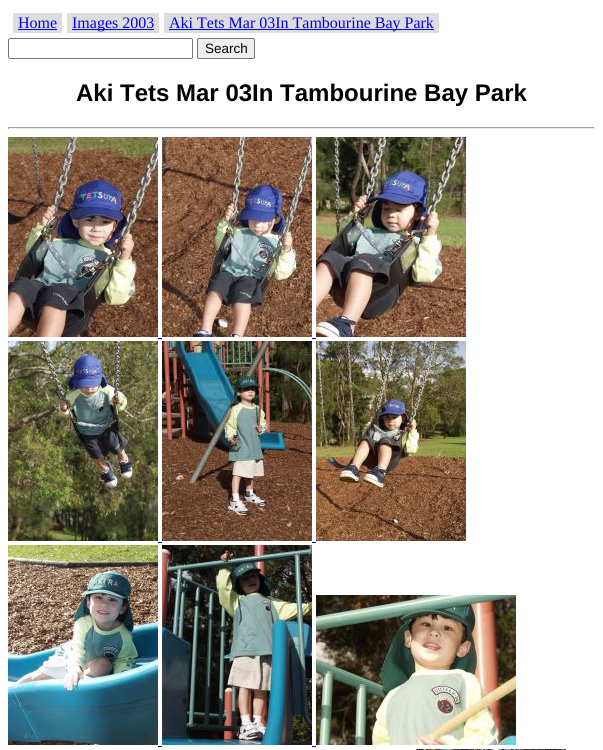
#include <cairo/cairo.h>
#include <math.h>
#include <stddef.h>


static void rounded_rect(cairo_t *cr, double x, double y, double w, double h, double r) {
  cairo_new_sub_path(cr);
  cairo_arc(cr, x + w - r, y + h - r, r, 0, M_PI / 2);
  cairo_arc(cr, x + r, y + h - r, r, M_PI / 2, M_PI);
  cairo_arc(cr, x + r, y + r, r, M_PI, 1.5 * M_PI);
  cairo_arc(cr, x + w - r, y + r, r, 1.5 * M_PI, 2 * M_PI);
  cairo_close_path(cr);
}

static void draw_image(cairo_t *cr, const char *path, double x, double y, double w, double h) {
  cairo_surface_t *image = cairo_image_surface_create_from_png(path);
  cairo_save(cr);
  cairo_set_source_surface(cr, image, x, y);
  cairo_rectangle(cr, x, y, w, h);
  cairo_fill(cr);
  cairo_restore(cr);
  cairo_surface_destroy(image);
}

static void draw(cairo_t *cr) {
  cairo_set_source_rgb(cr, 1, 1, 1);
  cairo_paint(cr);
  cairo_set_source_rgb(cr, 221 / 255.0, 221 / 255.0, 221 / 255.0);
  cairo_rectangle(cr, 13, 13, 49, 20);
  cairo_fill(cr);
  cairo_set_source_rgb(cr, 0, 0, 238 / 255.0);
  cairo_rectangle(cr, 18, 29, 39, 1);
  cairo_fill(cr);
  cairo_set_source_rgb(cr, 221 / 255.0, 221 / 255.0, 221 / 255.0);
  cairo_rectangle(cr, 67, 13, 92, 20);
  cairo_fill(cr);
  cairo_set_source_rgb(cr, 0, 0, 238 / 255.0);
  cairo_rectangle(cr, 72, 29, 82, 1);
  cairo_fill(cr);
  cairo_set_source_rgb(cr, 221 / 255.0, 221 / 255.0, 221 / 255.0);
  cairo_rectangle(cr, 164, 13, 275, 20);
  cairo_fill(cr);
  cairo_set_source_rgb(cr, 0, 0, 238 / 255.0);
  cairo_rectangle(cr, 169, 29, 265, 1);
  cairo_fill(cr);
  rounded_rect(cr, 8.5, 38.5, 184, 20, 1.5);
  cairo_set_source_rgb(cr, 118 / 255.0, 118 / 255.0, 118 / 255.0);
  cairo_set_line_width(cr, 1);
  cairo_stroke(cr);
  cairo_set_source_rgb(cr, 239 / 255.0, 239 / 255.0, 239 / 255.0);
  rounded_rect(cr, 197.5, 38.5, 57, 20, 1.5);
  cairo_fill_preserve(cr);
  cairo_set_source_rgb(cr, 118 / 255.0, 118 / 255.0, 118 / 255.0);
  cairo_stroke(cr);
  cairo_set_source_rgb(cr, 159 / 255.0, 159 / 255.0, 159 / 255.0);
  cairo_rectangle(cr, 8, 127, 587, 1);
  cairo_fill(cr);
  cairo_set_source_rgb(cr, 238 / 255.0, 238 / 255.0, 238 / 255.0);
  cairo_rectangle(cr, 594, 127, 1, 2);
  cairo_fill(cr);
  cairo_rectangle(cr, 8, 128, 587, 1);
  cairo_fill(cr);
  cairo_set_source_rgb(cr, 159 / 255.0, 159 / 255.0, 159 / 255.0);
  cairo_rectangle(cr, 8, 127, 1, 2);
  cairo_fill(cr);
  draw_image(cr, "images/1.png", 8, 137, 150, 200);
  draw_image(cr, "images/2.png", 162, 137, 150, 200);
  draw_image(cr, "images/3.png", 316, 137, 150, 200);
  cairo_set_source_rgb(cr, 0, 0, 238 / 255.0);
  cairo_rectangle(cr, 158, 338, 4, 1);
  cairo_fill(cr);
  cairo_rectangle(cr, 312, 338, 4, 1);
  cairo_fill(cr);
  draw_image(cr, "images/4.png", 8, 341, 150, 200);
  draw_image(cr, "images/5.png", 162, 341, 150, 200);
  draw_image(cr, "images/6.png", 316, 341, 150, 200);
  cairo_rectangle(cr, 158, 542, 4, 1);
  cairo_fill(cr);
  cairo_rectangle(cr, 312, 542, 4, 1);
  cairo_fill(cr);
  draw_image(cr, "images/7.png", 8, 545, 150, 200);
  draw_image(cr, "images/8.png", 162, 545, 150, 200);
  draw_image(cr, "images/9.png", 316, 595, 200, 150);
  cairo_rectangle(cr, 158, 746, 4, 1);
  cairo_fill(cr);
  cairo_rectangle(cr, 312, 746, 4, 1);
  cairo_fill(cr);
  draw_image(cr, "images/10.png", 416, 749, 150, 1);
  cairo_select_font_face(cr, "Liberation Serif", CAIRO_FONT_SLANT_NORMAL, CAIRO_FONT_WEIGHT_NORMAL);
  cairo_set_font_size(cr, 16);
  cairo_move_to(cr, 18, 28);
  cairo_show_text(cr, "Home");
  cairo_move_to(cr, 72, 28);
  cairo_show_text(cr, "Images 2003");
  cairo_move_to(cr, 169, 28);
  cairo_show_text(cr, "Aki Tets Mar 03In Tambourine Bay Park");
  cairo_select_font_face(cr, "Liberation Sans", CAIRO_FONT_SLANT_NORMAL, CAIRO_FONT_WEIGHT_NORMAL);
  cairo_set_font_size(cr, 13.5);
  cairo_set_source_rgb(cr, 0, 0, 0);
  cairo_move_to(cr, 205, 53);
  cairo_show_text(cr, "Search");
  cairo_select_font_face(cr, "Liberation Sans", CAIRO_FONT_SLANT_NORMAL, CAIRO_FONT_WEIGHT_BOLD);
  cairo_set_font_size(cr, 24);
  cairo_move_to(cr, 76, 101);
  cairo_show_text(cr, "Aki Tets Mar 03In Tambourine Bay Park");
}

int main(void) {
  cairo_surface_t *surface = cairo_image_surface_create(CAIRO_FORMAT_RGB24, 603, 750);
  cairo_t *cr = cairo_create(surface);
  cairo_font_options_t *options = cairo_font_options_create();
  cairo_font_options_set_hint_metrics(options, CAIRO_HINT_METRICS_OFF);
  cairo_font_options_set_hint_style(options, CAIRO_HINT_STYLE_NONE);
  cairo_set_font_options(cr, options);
  cairo_set_miter_limit(cr, 4);
  draw(cr);
  cairo_surface_write_to_png(surface, "out.png");
  cairo_font_options_destroy(options);
  cairo_destroy(cr);
  cairo_surface_destroy(surface);
  return 0;
}
